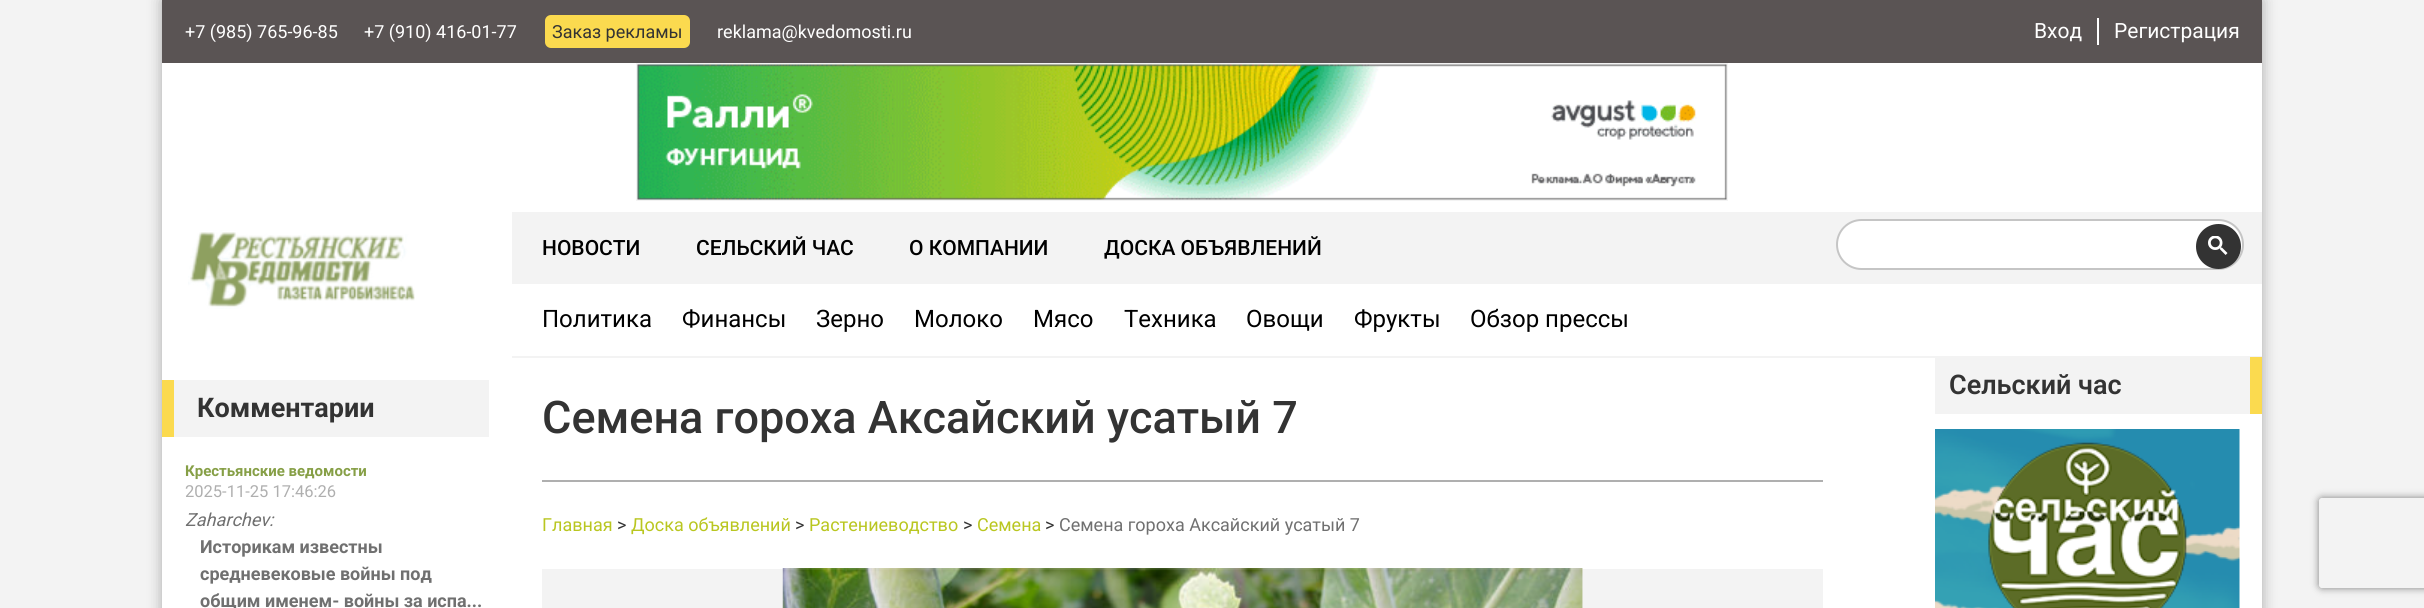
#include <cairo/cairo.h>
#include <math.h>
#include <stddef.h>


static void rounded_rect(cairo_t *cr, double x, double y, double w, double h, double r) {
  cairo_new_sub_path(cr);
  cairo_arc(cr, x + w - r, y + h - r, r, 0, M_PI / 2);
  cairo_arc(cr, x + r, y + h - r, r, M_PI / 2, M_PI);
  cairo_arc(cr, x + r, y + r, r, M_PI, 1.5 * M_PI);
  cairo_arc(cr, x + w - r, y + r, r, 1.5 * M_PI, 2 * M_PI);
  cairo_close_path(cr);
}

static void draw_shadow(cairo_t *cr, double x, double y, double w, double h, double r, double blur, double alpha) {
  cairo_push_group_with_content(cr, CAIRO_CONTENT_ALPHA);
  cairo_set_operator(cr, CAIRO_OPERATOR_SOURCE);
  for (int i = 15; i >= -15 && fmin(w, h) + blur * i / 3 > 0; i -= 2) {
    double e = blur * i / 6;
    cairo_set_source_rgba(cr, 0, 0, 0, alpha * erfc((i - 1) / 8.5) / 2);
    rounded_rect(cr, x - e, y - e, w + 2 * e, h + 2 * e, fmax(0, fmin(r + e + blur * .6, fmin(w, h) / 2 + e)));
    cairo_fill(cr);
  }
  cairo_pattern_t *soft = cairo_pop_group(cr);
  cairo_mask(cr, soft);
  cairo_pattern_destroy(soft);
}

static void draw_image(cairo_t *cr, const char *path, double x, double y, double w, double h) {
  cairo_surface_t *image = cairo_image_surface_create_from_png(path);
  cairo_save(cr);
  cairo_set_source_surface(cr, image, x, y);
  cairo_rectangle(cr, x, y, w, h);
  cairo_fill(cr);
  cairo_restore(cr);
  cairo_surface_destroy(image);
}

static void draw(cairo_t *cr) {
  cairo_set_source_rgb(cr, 243 / 255.0, 243 / 255.0, 243 / 255.0);
  cairo_paint(cr);
  cairo_set_source_rgb(cr, 0, 0, 0);
  draw_shadow(cr, 162, 0, 2100, 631, 0, 7.5, 0.3);
  cairo_set_source_rgb(cr, 90 / 255.0, 84 / 255.0, 84 / 255.0);
  cairo_rectangle(cr, 162, 0, 2100, 63);
  cairo_fill(cr);
  cairo_set_source_rgb(cr, 251 / 255.0, 218 / 255.0, 79 / 255.0);
  rounded_rect(cr, 545, 15, 145, 33, 6);
  cairo_fill(cr);
  cairo_set_source_rgb(cr, 1, 1, 1);
  cairo_rectangle(cr, 2097, 18, 2, 27);
  cairo_fill(cr);
  cairo_rectangle(cr, 162, 63, 2100, 545);
  cairo_fill(cr);
  cairo_rectangle(cr, 637, 64, 1090, 136);
  cairo_set_source_rgb(cr, 243 / 255.0, 243 / 255.0, 243 / 255.0);
  cairo_stroke(cr);
  draw_image(cr, "images/1.png", 637, 64, 1090, 136);
  draw_image(cr, "images/2.png", 188, 230, 227, 79);
  cairo_rectangle(cr, 512, 212, 1750, 72);
  cairo_fill(cr);
  cairo_set_source_rgb(cr, 1, 1, 1);
  rounded_rect(cr, 1837, 220, 406, 49, 24.5);
  cairo_fill_preserve(cr);
  cairo_set_source_rgb(cr, 197 / 255.0, 197 / 255.0, 197 / 255.0);
  cairo_stroke(cr);
  cairo_set_source_rgb(cr, 51 / 255.0, 51 / 255.0, 51 / 255.0);
  cairo_arc(cr, 2218.5, 246.5, 22.5, 0, 2 * M_PI);
  cairo_fill(cr);
  draw_image(cr, "images/3.png", 2208, 236, 20, 19);
  cairo_set_source_rgb(cr, 243 / 255.0, 243 / 255.0, 243 / 255.0);
  cairo_rectangle(cr, 512, 356, 1750, 2);
  cairo_fill(cr);
  cairo_rectangle(cr, 1935, 358, 315, 56);
  cairo_fill(cr);
  cairo_set_source_rgb(cr, 251 / 255.0, 218 / 255.0, 79 / 255.0);
  cairo_rectangle(cr, 2250, 357, 12, 57);
  cairo_fill(cr);
  draw_image(cr, "images/4.png", 1935, 429, 305, 179);
  cairo_set_source_rgb(cr, 243 / 255.0, 243 / 255.0, 243 / 255.0);
  cairo_rectangle(cr, 174, 380, 315, 57);
  cairo_fill(cr);
  cairo_set_source_rgb(cr, 251 / 255.0, 218 / 255.0, 79 / 255.0);
  cairo_rectangle(cr, 162, 380, 12, 57);
  cairo_fill(cr);
  cairo_set_source_rgb(cr, 175 / 255.0, 175 / 255.0, 175 / 255.0);
  cairo_rectangle(cr, 542, 480, 1281, 2);
  cairo_fill(cr);
  cairo_set_source_rgb(cr, 243 / 255.0, 243 / 255.0, 243 / 255.0);
  cairo_rectangle(cr, 542, 569, 1281, 39);
  cairo_fill(cr);
  draw_image(cr, "images/5.png", 782, 568, 801, 40);
  cairo_save(cr);
  cairo_set_fill_rule(cr, CAIRO_FILL_RULE_EVEN_ODD);
  cairo_new_path(cr);
  cairo_move_to(cr, 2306, 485);
  cairo_line_to(cr, 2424, 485);
  cairo_line_to(cr, 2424, 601);
  cairo_line_to(cr, 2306, 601);
  cairo_close_path(cr);
  cairo_move_to(cr, 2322, 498);
  cairo_line_to(cr, 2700, 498);
  cairo_curve_to(cr, 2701.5, 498, 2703, 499.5, 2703, 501);
  cairo_line_to(cr, 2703, 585);
  cairo_curve_to(cr, 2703, 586.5, 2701.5, 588, 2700, 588);
  cairo_line_to(cr, 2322, 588);
  cairo_curve_to(cr, 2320.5, 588, 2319, 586.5, 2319, 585);
  cairo_line_to(cr, 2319, 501);
  cairo_curve_to(cr, 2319, 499.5, 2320.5, 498, 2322, 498);
  cairo_close_path(cr);
  cairo_clip(cr);
  cairo_set_source_rgb(cr, 128 / 255.0, 128 / 255.0, 128 / 255.0);
  draw_shadow(cr, 2319, 498, 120, 90, 3, 4, 1);
  cairo_restore(cr);
  cairo_select_font_face(cr, "Roboto", CAIRO_FONT_SLANT_NORMAL, CAIRO_FONT_WEIGHT_NORMAL);
  cairo_set_font_size(cr, 18);
  cairo_set_source_rgb(cr, 1, 1, 1);
  cairo_move_to(cr, 185, 38);
  cairo_show_text(cr, "+7 (985) 765-96-85");
  cairo_move_to(cr, 364, 38);
  cairo_show_text(cr, "+7 (910) 416-01-77");
  cairo_set_source_rgb(cr, 51 / 255.0, 51 / 255.0, 51 / 255.0);
  cairo_move_to(cr, 552, 38);
  cairo_show_text(cr, "Заказ рекламы");
  cairo_set_source_rgb(cr, 1, 1, 1);
  cairo_move_to(cr, 717, 38);
  cairo_show_text(cr, "reklama@kvedomosti.ru");
  cairo_set_font_size(cr, 21);
  cairo_move_to(cr, 2034, 38);
  cairo_show_text(cr, "Вход");
  cairo_move_to(cr, 2114, 38);
  cairo_show_text(cr, "Регистрация");
  cairo_select_font_face(cr, "Roboto Medium", CAIRO_FONT_SLANT_NORMAL, CAIRO_FONT_WEIGHT_NORMAL);
  cairo_set_source_rgb(cr, 0, 0, 0);
  cairo_move_to(cr, 542, 255);
  cairo_show_text(cr, "НОВОСТИ");
  cairo_move_to(cr, 696, 255);
  cairo_show_text(cr, "СЕЛЬСКИЙ ЧАС");
  cairo_move_to(cr, 909, 255);
  cairo_show_text(cr, "О КОМПАНИИ");
  cairo_move_to(cr, 1104, 255);
  cairo_show_text(cr, "ДОСКА ОБЪЯВЛЕНИЙ");
  cairo_select_font_face(cr, "Roboto", CAIRO_FONT_SLANT_NORMAL, CAIRO_FONT_WEIGHT_NORMAL);
  cairo_set_font_size(cr, 24);
  cairo_move_to(cr, 542, 327);
  cairo_show_text(cr, "Политика");
  cairo_move_to(cr, 682, 327);
  cairo_show_text(cr, "Финансы");
  cairo_move_to(cr, 816, 327);
  cairo_show_text(cr, "Зерно");
  cairo_move_to(cr, 914, 327);
  cairo_show_text(cr, "Молоко");
  cairo_move_to(cr, 1033, 327);
  cairo_show_text(cr, "Мясо");
  cairo_move_to(cr, 1124, 327);
  cairo_show_text(cr, "Техника");
  cairo_move_to(cr, 1246, 327);
  cairo_show_text(cr, "Овощи");
  cairo_move_to(cr, 1354, 327);
  cairo_show_text(cr, "Фрукты");
  cairo_move_to(cr, 1470, 327);
  cairo_show_text(cr, "Обзор прессы");
  cairo_select_font_face(cr, "Roboto SemiBold", CAIRO_FONT_SLANT_NORMAL, CAIRO_FONT_WEIGHT_NORMAL);
  cairo_set_font_size(cr, 27);
  cairo_set_source_rgb(cr, 51 / 255.0, 51 / 255.0, 51 / 255.0);
  cairo_move_to(cr, 1949, 394);
  cairo_show_text(cr, "Сельский час");
  cairo_select_font_face(cr, "Roboto", CAIRO_FONT_SLANT_NORMAL, CAIRO_FONT_WEIGHT_BOLD);
  cairo_move_to(cr, 197, 417);
  cairo_show_text(cr, "Комментарии");
  cairo_set_font_size(cr, 15);
  cairo_set_source_rgb(cr, 134 / 255.0, 159 / 255.0, 70 / 255.0);
  cairo_move_to(cr, 185, 476);
  cairo_show_text(cr, "Крестьянские ведомости");
  cairo_select_font_face(cr, "Roboto", CAIRO_FONT_SLANT_NORMAL, CAIRO_FONT_WEIGHT_NORMAL);
  cairo_set_font_size(cr, 16.5);
  cairo_set_source_rgb(cr, 175 / 255.0, 175 / 255.0, 175 / 255.0);
  cairo_move_to(cr, 185, 497);
  cairo_show_text(cr, "2025-11-25 17:46:26");
  cairo_select_font_face(cr, "Roboto", CAIRO_FONT_SLANT_ITALIC, CAIRO_FONT_WEIGHT_NORMAL);
  cairo_set_font_size(cr, 18);
  cairo_set_source_rgb(cr, 112 / 255.0, 112 / 255.0, 112 / 255.0);
  cairo_move_to(cr, 185, 526);
  cairo_show_text(cr, "Zaharchev:");
  cairo_select_font_face(cr, "Roboto", CAIRO_FONT_SLANT_NORMAL, CAIRO_FONT_WEIGHT_BOLD);
  cairo_move_to(cr, 200, 553);
  cairo_show_text(cr, "Историкам известны");
  cairo_move_to(cr, 200, 580);
  cairo_show_text(cr, "средневековые войны под");
  cairo_move_to(cr, 200, 607);
  cairo_show_text(cr, "общим именем- войны за испа...");
  cairo_select_font_face(cr, "Roboto Medium", CAIRO_FONT_SLANT_NORMAL, CAIRO_FONT_WEIGHT_NORMAL);
  cairo_set_font_size(cr, 45);
  cairo_set_source_rgb(cr, 51 / 255.0, 51 / 255.0, 51 / 255.0);
  cairo_move_to(cr, 542, 433);
  cairo_show_text(cr, "Семена гороха Аксайский усатый 7");
  cairo_select_font_face(cr, "Roboto", CAIRO_FONT_SLANT_NORMAL, CAIRO_FONT_WEIGHT_NORMAL);
  cairo_set_font_size(cr, 18);
  cairo_set_source_rgb(cr, 185 / 255.0, 198 / 255.0, 32 / 255.0);
  cairo_move_to(cr, 542, 531);
  cairo_show_text(cr, "Главная");
  cairo_set_source_rgb(cr, 51 / 255.0, 51 / 255.0, 51 / 255.0);
  cairo_move_to(cr, 617, 531);
  cairo_show_text(cr, ">");
  cairo_set_source_rgb(cr, 185 / 255.0, 198 / 255.0, 32 / 255.0);
  cairo_move_to(cr, 631, 531);
  cairo_show_text(cr, "Доска объявлений");
  cairo_set_source_rgb(cr, 51 / 255.0, 51 / 255.0, 51 / 255.0);
  cairo_move_to(cr, 795, 531);
  cairo_show_text(cr, ">");
  cairo_set_source_rgb(cr, 185 / 255.0, 198 / 255.0, 32 / 255.0);
  cairo_move_to(cr, 809, 531);
  cairo_show_text(cr, "Растениеводство");
  cairo_set_source_rgb(cr, 51 / 255.0, 51 / 255.0, 51 / 255.0);
  cairo_move_to(cr, 963, 531);
  cairo_show_text(cr, ">");
  cairo_set_source_rgb(cr, 185 / 255.0, 198 / 255.0, 32 / 255.0);
  cairo_move_to(cr, 977, 531);
  cairo_show_text(cr, "Семена");
  cairo_set_source_rgb(cr, 51 / 255.0, 51 / 255.0, 51 / 255.0);
  cairo_move_to(cr, 1045, 531);
  cairo_show_text(cr, ">");
  cairo_set_source_rgb(cr, 112 / 255.0, 112 / 255.0, 112 / 255.0);
  cairo_move_to(cr, 1059, 531);
  cairo_show_text(cr, "Семена гороха Аксайский усатый 7");
}

int main(void) {
  cairo_surface_t *surface = cairo_image_surface_create(CAIRO_FORMAT_RGB24, 2424, 608);
  cairo_t *cr = cairo_create(surface);
  cairo_font_options_t *options = cairo_font_options_create();
  cairo_font_options_set_hint_metrics(options, CAIRO_HINT_METRICS_OFF);
  cairo_font_options_set_hint_style(options, CAIRO_HINT_STYLE_NONE);
  cairo_set_font_options(cr, options);
  cairo_set_miter_limit(cr, 4);
  draw(cr);
  cairo_surface_write_to_png(surface, "out.png");
  cairo_font_options_destroy(options);
  cairo_destroy(cr);
  cairo_surface_destroy(surface);
  return 0;
}
